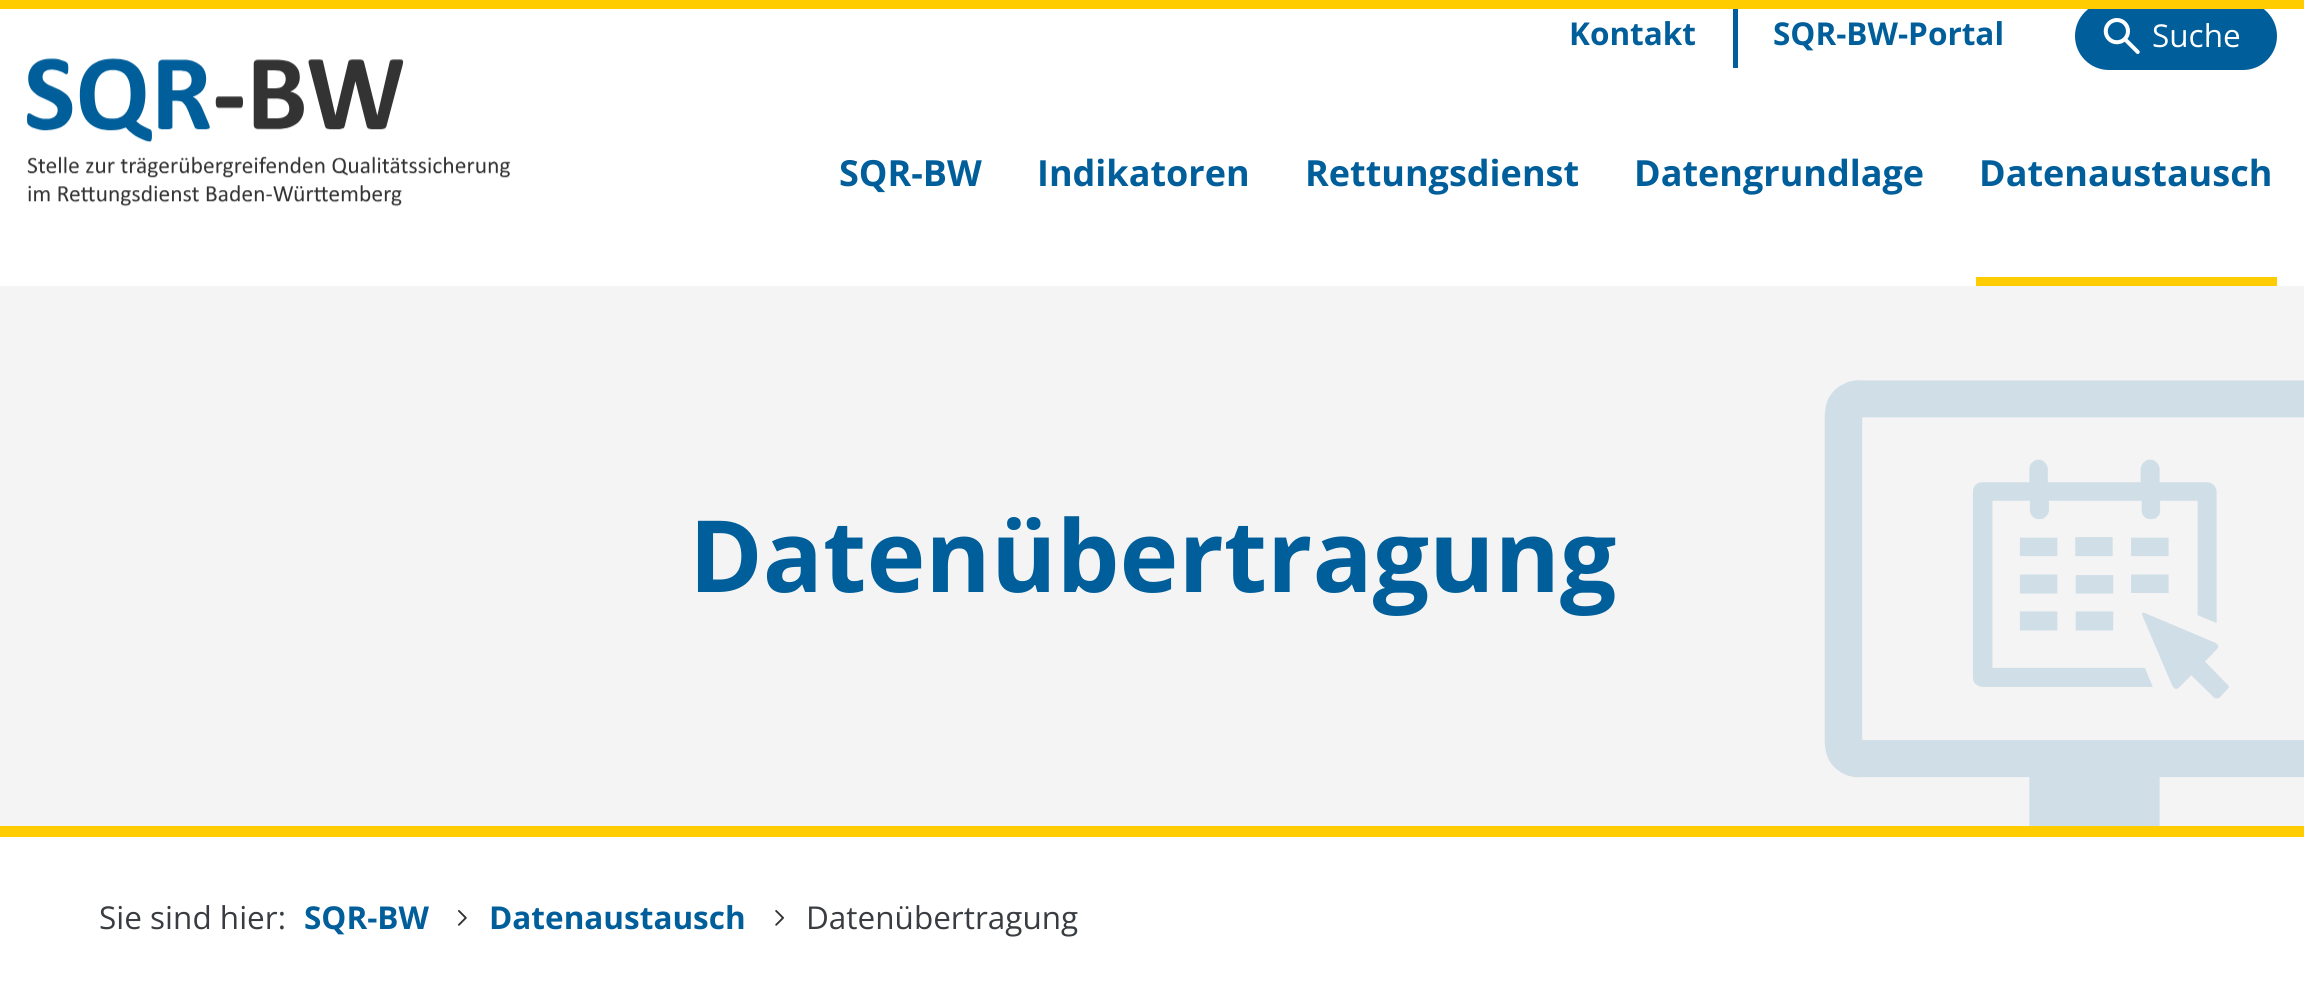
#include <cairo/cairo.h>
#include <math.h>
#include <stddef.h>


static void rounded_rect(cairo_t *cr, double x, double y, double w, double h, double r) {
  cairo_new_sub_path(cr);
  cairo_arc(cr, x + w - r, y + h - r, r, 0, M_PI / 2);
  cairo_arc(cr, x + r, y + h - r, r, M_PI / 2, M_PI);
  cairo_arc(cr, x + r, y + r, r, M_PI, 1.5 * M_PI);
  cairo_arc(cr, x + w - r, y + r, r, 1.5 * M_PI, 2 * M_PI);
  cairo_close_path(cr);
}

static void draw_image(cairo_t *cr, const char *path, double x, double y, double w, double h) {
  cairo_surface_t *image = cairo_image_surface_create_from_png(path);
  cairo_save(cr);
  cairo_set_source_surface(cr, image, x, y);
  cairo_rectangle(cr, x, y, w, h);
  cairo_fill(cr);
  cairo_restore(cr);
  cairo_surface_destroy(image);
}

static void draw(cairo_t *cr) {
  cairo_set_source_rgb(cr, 1, 1, 1);
  cairo_paint(cr);
  cairo_set_source_rgb(cr, 0, 94 / 255.0, 154 / 255.0);
  rounded_rect(cr, 2075, 2, 202, 68, 34);
  cairo_fill(cr);
  cairo_set_source_rgb(cr, 1, 204 / 255.0, 0);
  cairo_rectangle(cr, 0, 0, 2304, 9);
  cairo_fill(cr);
  cairo_set_source_rgb(cr, 0, 94 / 255.0, 154 / 255.0);
  cairo_rectangle(cr, 1733, 9, 5, 59);
  cairo_fill(cr);
  draw_image(cr, "images/1.png", 2103, 18, 37, 36);
  draw_image(cr, "images/2.png", 27, 58, 483, 149);
  cairo_set_source_rgb(cr, 1, 204 / 255.0, 0);
  cairo_rectangle(cr, 1976, 277, 301, 9);
  cairo_fill(cr);
  cairo_set_source_rgb(cr, 244 / 255.0, 244 / 255.0, 244 / 255.0);
  cairo_rectangle(cr, 0, 286, 2304, 540);
  cairo_fill(cr);
  cairo_set_source_rgb(cr, 1, 204 / 255.0, 0);
  cairo_rectangle(cr, 0, 826, 2304, 11);
  cairo_fill(cr);
  draw_image(cr, "images/3.png", 1824, 380, 480, 446);
  draw_image(cr, "images/4.png", 458, 910, 9, 16);
  draw_image(cr, "images/5.png", 775, 910, 9, 16);
  cairo_select_font_face(cr, "Open Sans", CAIRO_FONT_SLANT_NORMAL, CAIRO_FONT_WEIGHT_BOLD);
  cairo_set_font_size(cr, 31.5);
  cairo_set_source_rgb(cr, 0, 94 / 255.0, 154 / 255.0);
  cairo_move_to(cr, 1569, 45);
  cairo_show_text(cr, "Kontakt");
  cairo_move_to(cr, 1773, 45);
  cairo_show_text(cr, "SQR-BW-Portal");
  cairo_select_font_face(cr, "Open Sans", CAIRO_FONT_SLANT_NORMAL, CAIRO_FONT_WEIGHT_NORMAL);
  cairo_set_source_rgb(cr, 1, 1, 1);
  cairo_move_to(cr, 2152, 47);
  cairo_show_text(cr, "Suche");
  cairo_select_font_face(cr, "Open Sans", CAIRO_FONT_SLANT_NORMAL, CAIRO_FONT_WEIGHT_BOLD);
  cairo_set_font_size(cr, 36);
  cairo_set_source_rgb(cr, 0, 94 / 255.0, 154 / 255.0);
  cairo_move_to(cr, 839, 186);
  cairo_show_text(cr, "SQR-BW");
  cairo_move_to(cr, 1037, 186);
  cairo_show_text(cr, "Indikatoren");
  cairo_move_to(cr, 1305, 186);
  cairo_show_text(cr, "Rettungsdienst");
  cairo_move_to(cr, 1634, 186);
  cairo_show_text(cr, "Datengrundlage");
  cairo_move_to(cr, 1979, 186);
  cairo_show_text(cr, "Datenaustausch");
  cairo_set_font_size(cr, 99.75);
  cairo_move_to(cr, 689, 592);
  cairo_show_text(cr, "Datenübertragung");
  cairo_select_font_face(cr, "Open Sans", CAIRO_FONT_SLANT_NORMAL, CAIRO_FONT_WEIGHT_NORMAL);
  cairo_set_font_size(cr, 31.5);
  cairo_set_source_rgb(cr, 57 / 255.0, 61 / 255.0, 65 / 255.0);
  cairo_move_to(cr, 99, 929);
  cairo_show_text(cr, "Sie sind hier:");
  cairo_select_font_face(cr, "Open Sans", CAIRO_FONT_SLANT_NORMAL, CAIRO_FONT_WEIGHT_BOLD);
  cairo_set_source_rgb(cr, 0, 94 / 255.0, 154 / 255.0);
  cairo_move_to(cr, 304, 929);
  cairo_show_text(cr, "SQR-BW");
  cairo_move_to(cr, 489, 929);
  cairo_show_text(cr, "Datenaustausch");
  cairo_select_font_face(cr, "Open Sans", CAIRO_FONT_SLANT_NORMAL, CAIRO_FONT_WEIGHT_NORMAL);
  cairo_set_source_rgb(cr, 57 / 255.0, 61 / 255.0, 65 / 255.0);
  cairo_move_to(cr, 806, 929);
  cairo_show_text(cr, "Datenübertragung");
}

int main(void) {
  cairo_surface_t *surface = cairo_image_surface_create(CAIRO_FORMAT_RGB24, 2304, 993);
  cairo_t *cr = cairo_create(surface);
  cairo_font_options_t *options = cairo_font_options_create();
  cairo_font_options_set_hint_metrics(options, CAIRO_HINT_METRICS_OFF);
  cairo_font_options_set_hint_style(options, CAIRO_HINT_STYLE_NONE);
  cairo_set_font_options(cr, options);
  cairo_set_miter_limit(cr, 4);
  draw(cr);
  cairo_surface_write_to_png(surface, "out.png");
  cairo_font_options_destroy(options);
  cairo_destroy(cr);
  cairo_surface_destroy(surface);
  return 0;
}
